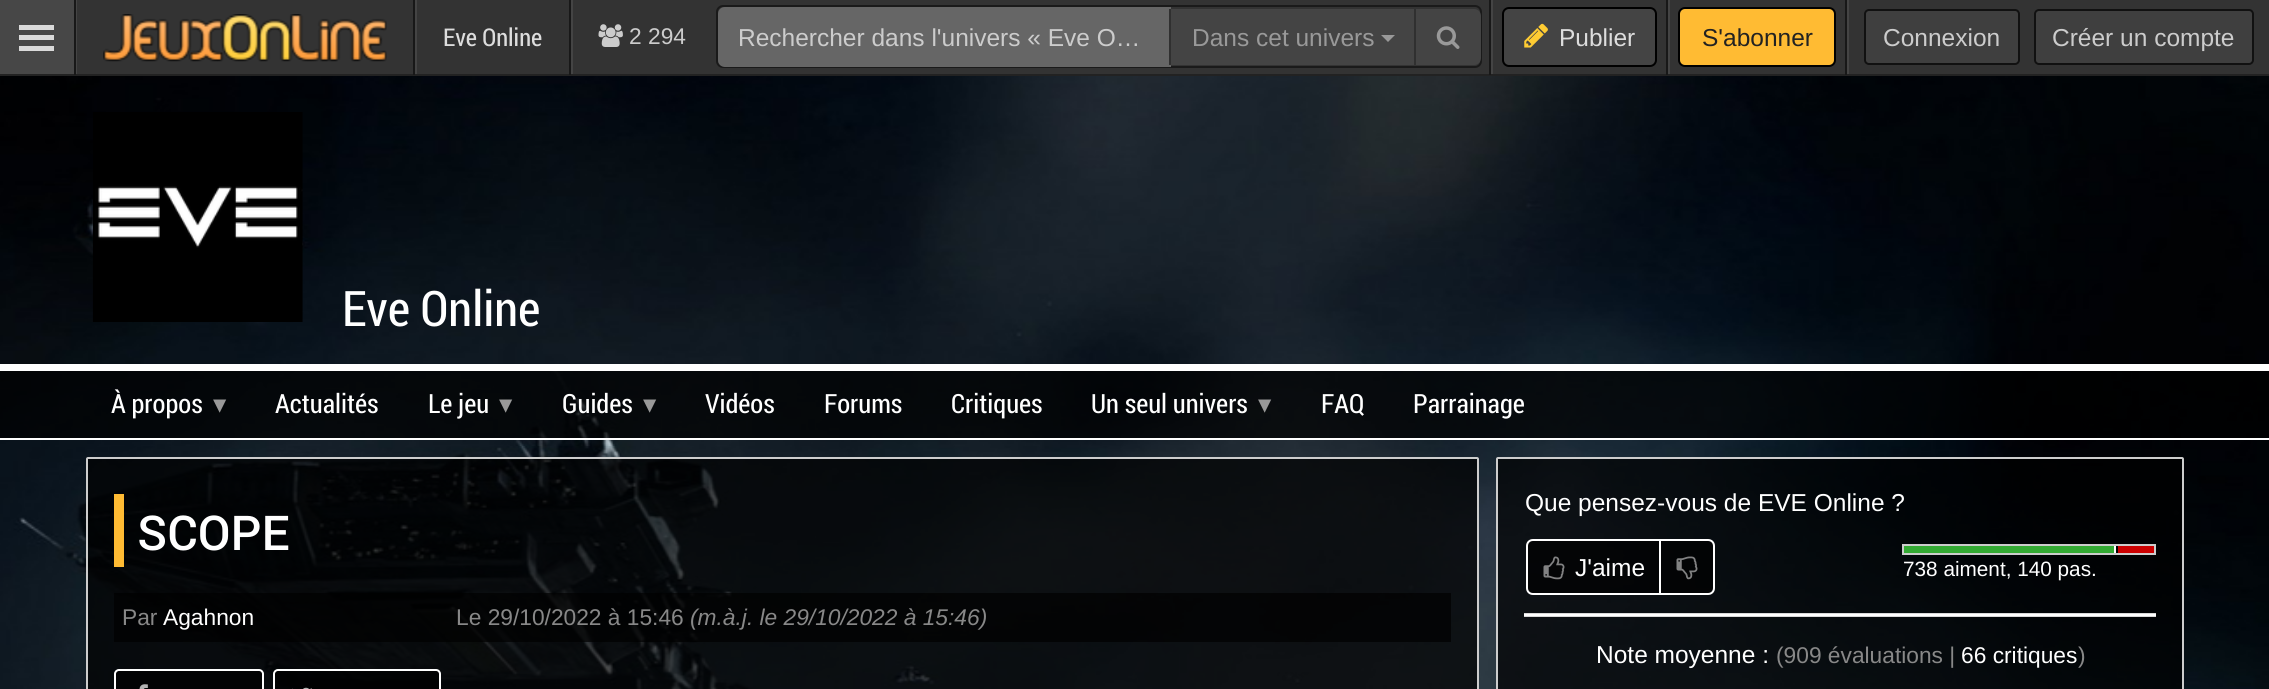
#include <cairo/cairo.h>
#include <math.h>
#include <stddef.h>


static void rounded_rect(cairo_t *cr, double x, double y, double w, double h, double r) {
  cairo_new_sub_path(cr);
  cairo_arc(cr, x + w - r, y + h - r, r, 0, M_PI / 2);
  cairo_arc(cr, x + r, y + h - r, r, M_PI / 2, M_PI);
  cairo_arc(cr, x + r, y + r, r, M_PI, 1.5 * M_PI);
  cairo_arc(cr, x + w - r, y + r, r, 1.5 * M_PI, 2 * M_PI);
  cairo_close_path(cr);
}

static void draw_image(cairo_t *cr, const char *path, double x, double y, double w, double h) {
  cairo_surface_t *image = cairo_image_surface_create_from_png(path);
  cairo_save(cr);
  cairo_set_source_surface(cr, image, x, y);
  cairo_rectangle(cr, x, y, w, h);
  cairo_fill(cr);
  cairo_restore(cr);
  cairo_surface_destroy(image);
}

static void draw(cairo_t *cr) {
  cairo_set_source_rgb(cr, 1, 1, 1);
  cairo_paint(cr);
  draw_image(cr, "images/1.png", 0, 76, 2269, 613);
  cairo_set_source_rgb(cr, 51 / 255.0, 51 / 255.0, 51 / 255.0);
  cairo_rectangle(cr, 77, 0, 2192, 74);
  cairo_fill(cr);
  cairo_set_source_rgb(cr, 68 / 255.0, 68 / 255.0, 68 / 255.0);
  cairo_rectangle(cr, 76, 0, 1, 75);
  cairo_fill(cr);
  cairo_rectangle(cr, 415, 0, 2, 75);
  cairo_fill(cr);
  cairo_rectangle(cr, 571, 0, 2, 75);
  cairo_fill(cr);
  cairo_rectangle(cr, 1491, 0, 2, 75);
  cairo_fill(cr);
  cairo_rectangle(cr, 1668, 0, 2, 75);
  cairo_fill(cr);
  cairo_rectangle(cr, 1847, 0, 2, 75);
  cairo_fill(cr);
  cairo_set_source_rgb(cr, 34 / 255.0, 34 / 255.0, 34 / 255.0);
  cairo_rectangle(cr, 0, 74, 2269, 2);
  cairo_fill(cr);
  cairo_set_source_rgb(cr, 71 / 255.0, 71 / 255.0, 71 / 255.0);
  cairo_rectangle(cr, 0, 0, 74, 74);
  cairo_fill(cr);
  cairo_set_source_rgb(cr, 218 / 255.0, 218 / 255.0, 218 / 255.0);
  cairo_rectangle(cr, 19, 25, 35, 5);
  cairo_fill(cr);
  cairo_rectangle(cr, 19, 35, 35, 5);
  cairo_fill(cr);
  cairo_rectangle(cr, 19, 46, 35, 5);
  cairo_fill(cr);
  cairo_set_source_rgb(cr, 24 / 255.0, 24 / 255.0, 24 / 255.0);
  cairo_rectangle(cr, 74, 0, 2, 75);
  cairo_fill(cr);
  draw_image(cr, "images/2.png", 103, 14, 284, 48);
  cairo_rectangle(cr, 413, 0, 2, 75);
  cairo_fill(cr);
  cairo_rectangle(cr, 569, 0, 2, 75);
  cairo_fill(cr);
  draw_image(cr, "images/3.png", 598, 24, 25, 23);
  rounded_rect(cr, 717, 6, 764, 61, 6);
  cairo_set_source_rgb(cr, 26 / 255.0, 26 / 255.0, 26 / 255.0);
  cairo_stroke(cr);
  cairo_set_source_rgb(cr, 102 / 255.0, 102 / 255.0, 102 / 255.0);
  cairo_new_path(cr);
  cairo_move_to(cr, 725, 7);
  cairo_line_to(cr, 1171, 7);
  cairo_line_to(cr, 1171, 67);
  cairo_line_to(cr, 725, 67);
  cairo_curve_to(cr, 721, 67, 718, 64, 718, 60);
  cairo_line_to(cr, 718, 14);
  cairo_curve_to(cr, 718, 10, 721, 7, 725, 7);
  cairo_close_path(cr);
  cairo_fill(cr);
  cairo_set_source_rgb(cr, 68 / 255.0, 68 / 255.0, 68 / 255.0);
  cairo_rectangle(cr, 1171, 9, 243, 56);
  cairo_fill(cr);
  cairo_set_source_rgb(cr, 48 / 255.0, 48 / 255.0, 48 / 255.0);
  cairo_rectangle(cr, 1169, 9, 2, 56);
  cairo_fill(cr);
  cairo_set_source_rgb(cr, 153 / 255.0, 153 / 255.0, 153 / 255.0);
  cairo_new_path(cr);
  cairo_move_to(cr, 1381, 35);
  cairo_line_to(cr, 1395, 35);
  cairo_line_to(cr, 1388, 42);
  cairo_close_path(cr);
  cairo_fill(cr);
  cairo_set_source_rgb(cr, 68 / 255.0, 68 / 255.0, 68 / 255.0);
  cairo_new_path(cr);
  cairo_move_to(cr, 1414, 9);
  cairo_line_to(cr, 1474, 9);
  cairo_curve_to(cr, 1478, 9, 1481, 12, 1481, 16);
  cairo_line_to(cr, 1481, 58);
  cairo_curve_to(cr, 1481, 62, 1478, 65, 1474, 65);
  cairo_line_to(cr, 1414, 65);
  cairo_close_path(cr);
  cairo_fill(cr);
  cairo_set_source_rgb(cr, 48 / 255.0, 48 / 255.0, 48 / 255.0);
  cairo_rectangle(cr, 1414, 9, 2, 56);
  cairo_fill(cr);
  draw_image(cr, "images/4.png", 1436, 26, 24, 23);
  cairo_set_source_rgb(cr, 24 / 255.0, 24 / 255.0, 24 / 255.0);
  cairo_rectangle(cr, 1489, 0, 2, 75);
  cairo_fill(cr);
  cairo_set_source_rgb(cr, 68 / 255.0, 68 / 255.0, 68 / 255.0);
  rounded_rect(cr, 1503, 8, 153, 58, 6);
  cairo_fill_preserve(cr);
  cairo_set_source_rgb(cr, 0, 0, 0);
  cairo_stroke(cr);
  draw_image(cr, "images/5.png", 1524, 23, 24, 25);
  cairo_set_source_rgb(cr, 24 / 255.0, 24 / 255.0, 24 / 255.0);
  cairo_rectangle(cr, 1666, 0, 2, 75);
  cairo_fill(cr);
  cairo_set_source_rgb(cr, 1, 187 / 255.0, 51 / 255.0);
  rounded_rect(cr, 1679, 8, 156, 58, 6);
  cairo_fill_preserve(cr);
  cairo_set_source_rgb(cr, 0, 0, 0);
  cairo_stroke(cr);
  cairo_set_source_rgb(cr, 24 / 255.0, 24 / 255.0, 24 / 255.0);
  cairo_rectangle(cr, 1845, 0, 2, 75);
  cairo_fill(cr);
  cairo_set_source_rgb(cr, 63 / 255.0, 63 / 255.0, 63 / 255.0);
  rounded_rect(cr, 1865, 10, 154, 54, 4);
  cairo_fill_preserve(cr);
  cairo_set_source_rgb(cr, 17 / 255.0, 17 / 255.0, 17 / 255.0);
  cairo_stroke(cr);
  cairo_set_source_rgb(cr, 63 / 255.0, 63 / 255.0, 63 / 255.0);
  rounded_rect(cr, 2035, 10, 218, 54, 4);
  cairo_fill_preserve(cr);
  cairo_set_source_rgb(cr, 17 / 255.0, 17 / 255.0, 17 / 255.0);
  cairo_stroke(cr);
  draw_image(cr, "images/6.png", 92, 112, 211, 210);
  cairo_set_source_rgba(cr, 0, 0, 0, 0.7);
  cairo_rectangle(cr, 0, 371, 2269, 67);
  cairo_fill(cr);
  cairo_set_source_rgb(cr, 1, 1, 1);
  cairo_rectangle(cr, 0, 364, 2269, 7);
  cairo_fill(cr);
  cairo_rectangle(cr, 0, 438, 2269, 2);
  cairo_fill(cr);
  cairo_set_source_rgba(cr, 0, 0, 0, 0.7);
  rounded_rect(cr, 87, 458, 1391, 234, 1);
  cairo_fill_preserve(cr);
  cairo_set_source_rgb(cr, 205 / 255.0, 205 / 255.0, 205 / 255.0);
  cairo_stroke(cr);
  cairo_set_source_rgb(cr, 1, 187 / 255.0, 51 / 255.0);
  cairo_rectangle(cr, 114, 494, 10, 73);
  cairo_fill(cr);
  cairo_set_source_rgba(cr, 0, 0, 0, 0.7);
  cairo_rectangle(cr, 114, 593, 1337, 49);
  cairo_fill(cr);
  cairo_set_source_rgb(cr, 2 / 255.0, 3 / 255.0, 4 / 255.0);
  rounded_rect(cr, 115, 670, 148, 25, 4);
  cairo_fill_preserve(cr);
  cairo_set_source_rgb(cr, 1, 1, 1);
  cairo_stroke(cr);
  draw_image(cr, "images/7.png", 139, 684, 9, 5);
  cairo_set_source_rgba(cr, 0, 0, 0, 0.7);
  rounded_rect(cr, 274, 670, 166, 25, 4);
  cairo_fill_preserve(cr);
  cairo_set_source_rgb(cr, 1, 1, 1);
  cairo_stroke(cr);
  draw_image(cr, "images/8.png", 292, 687, 20, 2);
  cairo_set_source_rgba(cr, 0, 0, 0, 0.7);
  rounded_rect(cr, 1497, 458, 686, 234, 1);
  cairo_fill_preserve(cr);
  cairo_set_source_rgb(cr, 205 / 255.0, 205 / 255.0, 205 / 255.0);
  cairo_stroke(cr);
  cairo_set_source_rgba(cr, 0, 0, 0, 0.7);
  cairo_new_path(cr);
  cairo_move_to(cr, 1533, 540);
  cairo_line_to(cr, 1660, 540);
  cairo_line_to(cr, 1660, 594);
  cairo_line_to(cr, 1533, 594);
  cairo_curve_to(cr, 1529.5, 594, 1527, 591.5, 1527, 588);
  cairo_line_to(cr, 1527, 546);
  cairo_curve_to(cr, 1527, 542.5, 1529.5, 540, 1533, 540);
  cairo_close_path(cr);
  cairo_fill_preserve(cr);
  cairo_set_source_rgb(cr, 1, 1, 1);
  cairo_stroke(cr);
  draw_image(cr, "images/9.png", 1543, 556, 22, 24);
  cairo_set_source_rgba(cr, 0, 0, 0, 0.7);
  cairo_new_path(cr);
  cairo_move_to(cr, 1660, 540);
  cairo_line_to(cr, 1708, 540);
  cairo_curve_to(cr, 1711.5, 540, 1714, 542.5, 1714, 546);
  cairo_line_to(cr, 1714, 588);
  cairo_curve_to(cr, 1714, 591.5, 1711.5, 594, 1708, 594);
  cairo_line_to(cr, 1660, 594);
  cairo_close_path(cr);
  cairo_fill_preserve(cr);
  cairo_set_source_rgb(cr, 1, 1, 1);
  cairo_stroke(cr);
  draw_image(cr, "images/10.png", 1676, 556, 22, 24);
  cairo_rectangle(cr, 1903, 545, 252, 9);
  cairo_set_source_rgb(cr, 204 / 255.0, 204 / 255.0, 204 / 255.0);
  cairo_stroke(cr);
  cairo_set_source_rgb(cr, 51 / 255.0, 170 / 255.0, 51 / 255.0);
  cairo_rectangle(cr, 1904, 546, 212, 7);
  cairo_fill(cr);
  cairo_set_source_rgb(cr, 1, 1, 1);
  cairo_rectangle(cr, 2114, 546, 2, 7);
  cairo_fill(cr);
  cairo_set_source_rgb(cr, 204 / 255.0, 0, 0);
  cairo_rectangle(cr, 2118, 546, 36, 7);
  cairo_fill(cr);
  cairo_set_source_rgb(cr, 217 / 255.0, 217 / 255.0, 217 / 255.0);
  cairo_rectangle(cr, 1524, 613, 632, 4);
  cairo_fill(cr);
  cairo_set_source_rgb(cr, 1, 1, 1);
  cairo_rectangle(cr, 1524, 614, 632, 2);
  cairo_fill(cr);
  cairo_select_font_face(cr, "Roboto Condensed", CAIRO_FONT_SLANT_NORMAL, CAIRO_FONT_WEIGHT_NORMAL);
  cairo_set_font_size(cr, 24.5);
  cairo_set_source_rgb(cr, 221 / 255.0, 221 / 255.0, 221 / 255.0);
  cairo_move_to(cr, 443, 46);
  cairo_show_text(cr, "Eve Online");
  cairo_select_font_face(cr, "Liberation Sans", CAIRO_FONT_SLANT_NORMAL, CAIRO_FONT_WEIGHT_NORMAL);
  cairo_set_font_size(cr, 22.75);
  cairo_set_source_rgb(cr, 204 / 255.0, 204 / 255.0, 204 / 255.0);
  cairo_move_to(cr, 629, 44);
  cairo_show_text(cr, "2 294");
  cairo_set_font_size(cr, 24.5);
  cairo_move_to(cr, 738, 46);
  cairo_show_text(cr, "Rechercher dans l'univers « Eve O…");
  cairo_set_source_rgb(cr, 153 / 255.0, 153 / 255.0, 153 / 255.0);
  cairo_move_to(cr, 1192, 46);
  cairo_show_text(cr, "Dans cet univers");
  cairo_set_source_rgb(cr, 221 / 255.0, 221 / 255.0, 221 / 255.0);
  cairo_move_to(cr, 1559, 46);
  cairo_show_text(cr, "Publier");
  cairo_set_source_rgb(cr, 34 / 255.0, 34 / 255.0, 34 / 255.0);
  cairo_move_to(cr, 1702, 46);
  cairo_show_text(cr, "S'abonner");
  cairo_set_source_rgb(cr, 204 / 255.0, 204 / 255.0, 204 / 255.0);
  cairo_move_to(cr, 1883, 46);
  cairo_show_text(cr, "Connexion");
  cairo_move_to(cr, 2052, 46);
  cairo_show_text(cr, "Créer un compte");
  cairo_select_font_face(cr, "Roboto Condensed", CAIRO_FONT_SLANT_NORMAL, CAIRO_FONT_WEIGHT_NORMAL);
  cairo_set_font_size(cr, 49);
  cairo_set_source_rgb(cr, 1, 1, 1);
  cairo_move_to(cr, 342, 326);
  cairo_show_text(cr, "Eve Online");
  cairo_set_font_size(cr, 26.5);
  cairo_move_to(cr, 111, 413);
  cairo_show_text(cr, "À propos");
  cairo_select_font_face(cr, "DejaVu Sans", CAIRO_FONT_SLANT_NORMAL, CAIRO_FONT_WEIGHT_NORMAL);
  cairo_set_source_rgb(cr, 153 / 255.0, 153 / 255.0, 153 / 255.0);
  cairo_move_to(cr, 213, 413);
  cairo_show_text(cr, "▾");
  cairo_select_font_face(cr, "Roboto Condensed", CAIRO_FONT_SLANT_NORMAL, CAIRO_FONT_WEIGHT_NORMAL);
  cairo_set_source_rgb(cr, 1, 1, 1);
  cairo_move_to(cr, 275, 413);
  cairo_show_text(cr, "Actualités");
  cairo_move_to(cr, 428, 413);
  cairo_show_text(cr, "Le jeu");
  cairo_select_font_face(cr, "DejaVu Sans", CAIRO_FONT_SLANT_NORMAL, CAIRO_FONT_WEIGHT_NORMAL);
  cairo_set_source_rgb(cr, 153 / 255.0, 153 / 255.0, 153 / 255.0);
  cairo_move_to(cr, 499, 413);
  cairo_show_text(cr, "▾");
  cairo_select_font_face(cr, "Roboto Condensed", CAIRO_FONT_SLANT_NORMAL, CAIRO_FONT_WEIGHT_NORMAL);
  cairo_set_source_rgb(cr, 1, 1, 1);
  cairo_move_to(cr, 562, 413);
  cairo_show_text(cr, "Guides");
  cairo_select_font_face(cr, "DejaVu Sans", CAIRO_FONT_SLANT_NORMAL, CAIRO_FONT_WEIGHT_NORMAL);
  cairo_set_source_rgb(cr, 153 / 255.0, 153 / 255.0, 153 / 255.0);
  cairo_move_to(cr, 643, 413);
  cairo_show_text(cr, "▾");
  cairo_select_font_face(cr, "Roboto Condensed", CAIRO_FONT_SLANT_NORMAL, CAIRO_FONT_WEIGHT_NORMAL);
  cairo_set_source_rgb(cr, 1, 1, 1);
  cairo_move_to(cr, 705, 413);
  cairo_show_text(cr, "Vidéos");
  cairo_move_to(cr, 824, 413);
  cairo_show_text(cr, "Forums");
  cairo_move_to(cr, 951, 413);
  cairo_show_text(cr, "Critiques");
  cairo_move_to(cr, 1091, 413);
  cairo_show_text(cr, "Un seul univers");
  cairo_select_font_face(cr, "DejaVu Sans", CAIRO_FONT_SLANT_NORMAL, CAIRO_FONT_WEIGHT_NORMAL);
  cairo_set_source_rgb(cr, 153 / 255.0, 153 / 255.0, 153 / 255.0);
  cairo_move_to(cr, 1258, 413);
  cairo_show_text(cr, "▾");
  cairo_select_font_face(cr, "Roboto Condensed", CAIRO_FONT_SLANT_NORMAL, CAIRO_FONT_WEIGHT_NORMAL);
  cairo_set_source_rgb(cr, 1, 1, 1);
  cairo_move_to(cr, 1321, 413);
  cairo_show_text(cr, "FAQ");
  cairo_move_to(cr, 1413, 413);
  cairo_show_text(cr, "Parrainage");
  cairo_select_font_face(cr, "Roboto Medium", CAIRO_FONT_SLANT_NORMAL, CAIRO_FONT_WEIGHT_NORMAL);
  cairo_set_font_size(cr, 48);
  cairo_move_to(cr, 137, 550);
  cairo_show_text(cr, "SCOPE");
  cairo_select_font_face(cr, "Liberation Sans", CAIRO_FONT_SLANT_NORMAL, CAIRO_FONT_WEIGHT_NORMAL);
  cairo_set_font_size(cr, 22.75);
  cairo_set_source_rgb(cr, 136 / 255.0, 136 / 255.0, 136 / 255.0);
  cairo_move_to(cr, 122, 625);
  cairo_show_text(cr, "Par");
  cairo_set_source_rgb(cr, 1, 1, 1);
  cairo_move_to(cr, 163, 625);
  cairo_show_text(cr, "Agahnon");
  cairo_set_source_rgb(cr, 136 / 255.0, 136 / 255.0, 136 / 255.0);
  cairo_move_to(cr, 456, 625);
  cairo_show_text(cr, "Le 29/10/2022 à 15:46");
  cairo_select_font_face(cr, "Liberation Sans", CAIRO_FONT_SLANT_ITALIC, CAIRO_FONT_WEIGHT_NORMAL);
  cairo_move_to(cr, 690, 625);
  cairo_show_text(cr, "(m.à.j. le 29/10/2022 à 15:46)");
  cairo_select_font_face(cr, "Liberation Sans", CAIRO_FONT_SLANT_NORMAL, CAIRO_FONT_WEIGHT_NORMAL);
  cairo_set_font_size(cr, 24.5);
  cairo_set_source_rgb(cr, 1, 1, 1);
  cairo_move_to(cr, 1525, 511);
  cairo_show_text(cr, "Que pensez-vous de EVE Online ?");
  cairo_move_to(cr, 1575, 576);
  cairo_show_text(cr, "J'aime");
  cairo_set_font_size(cr, 20.75);
  cairo_move_to(cr, 1903, 576);
  cairo_show_text(cr, "738 aiment, 140 pas.");
  cairo_set_font_size(cr, 24.5);
  cairo_move_to(cr, 1596, 663);
  cairo_show_text(cr, "Note moyenne :");
  cairo_set_font_size(cr, 22.75);
  cairo_set_source_rgb(cr, 136 / 255.0, 136 / 255.0, 136 / 255.0);
  cairo_move_to(cr, 1776, 663);
  cairo_show_text(cr, "(909 évaluations |");
  cairo_set_source_rgb(cr, 1, 1, 1);
  cairo_move_to(cr, 1961, 663);
  cairo_show_text(cr, "66 critiques");
  cairo_set_source_rgb(cr, 136 / 255.0, 136 / 255.0, 136 / 255.0);
  cairo_move_to(cr, 2078, 663);
  cairo_show_text(cr, ")");
}

int main(void) {
  cairo_surface_t *surface = cairo_image_surface_create(CAIRO_FORMAT_RGB24, 2269, 689);
  cairo_t *cr = cairo_create(surface);
  cairo_font_options_t *options = cairo_font_options_create();
  cairo_font_options_set_hint_metrics(options, CAIRO_HINT_METRICS_OFF);
  cairo_font_options_set_hint_style(options, CAIRO_HINT_STYLE_NONE);
  cairo_set_font_options(cr, options);
  cairo_set_miter_limit(cr, 4);
  draw(cr);
  cairo_surface_write_to_png(surface, "out.png");
  cairo_font_options_destroy(options);
  cairo_destroy(cr);
  cairo_surface_destroy(surface);
  return 0;
}
